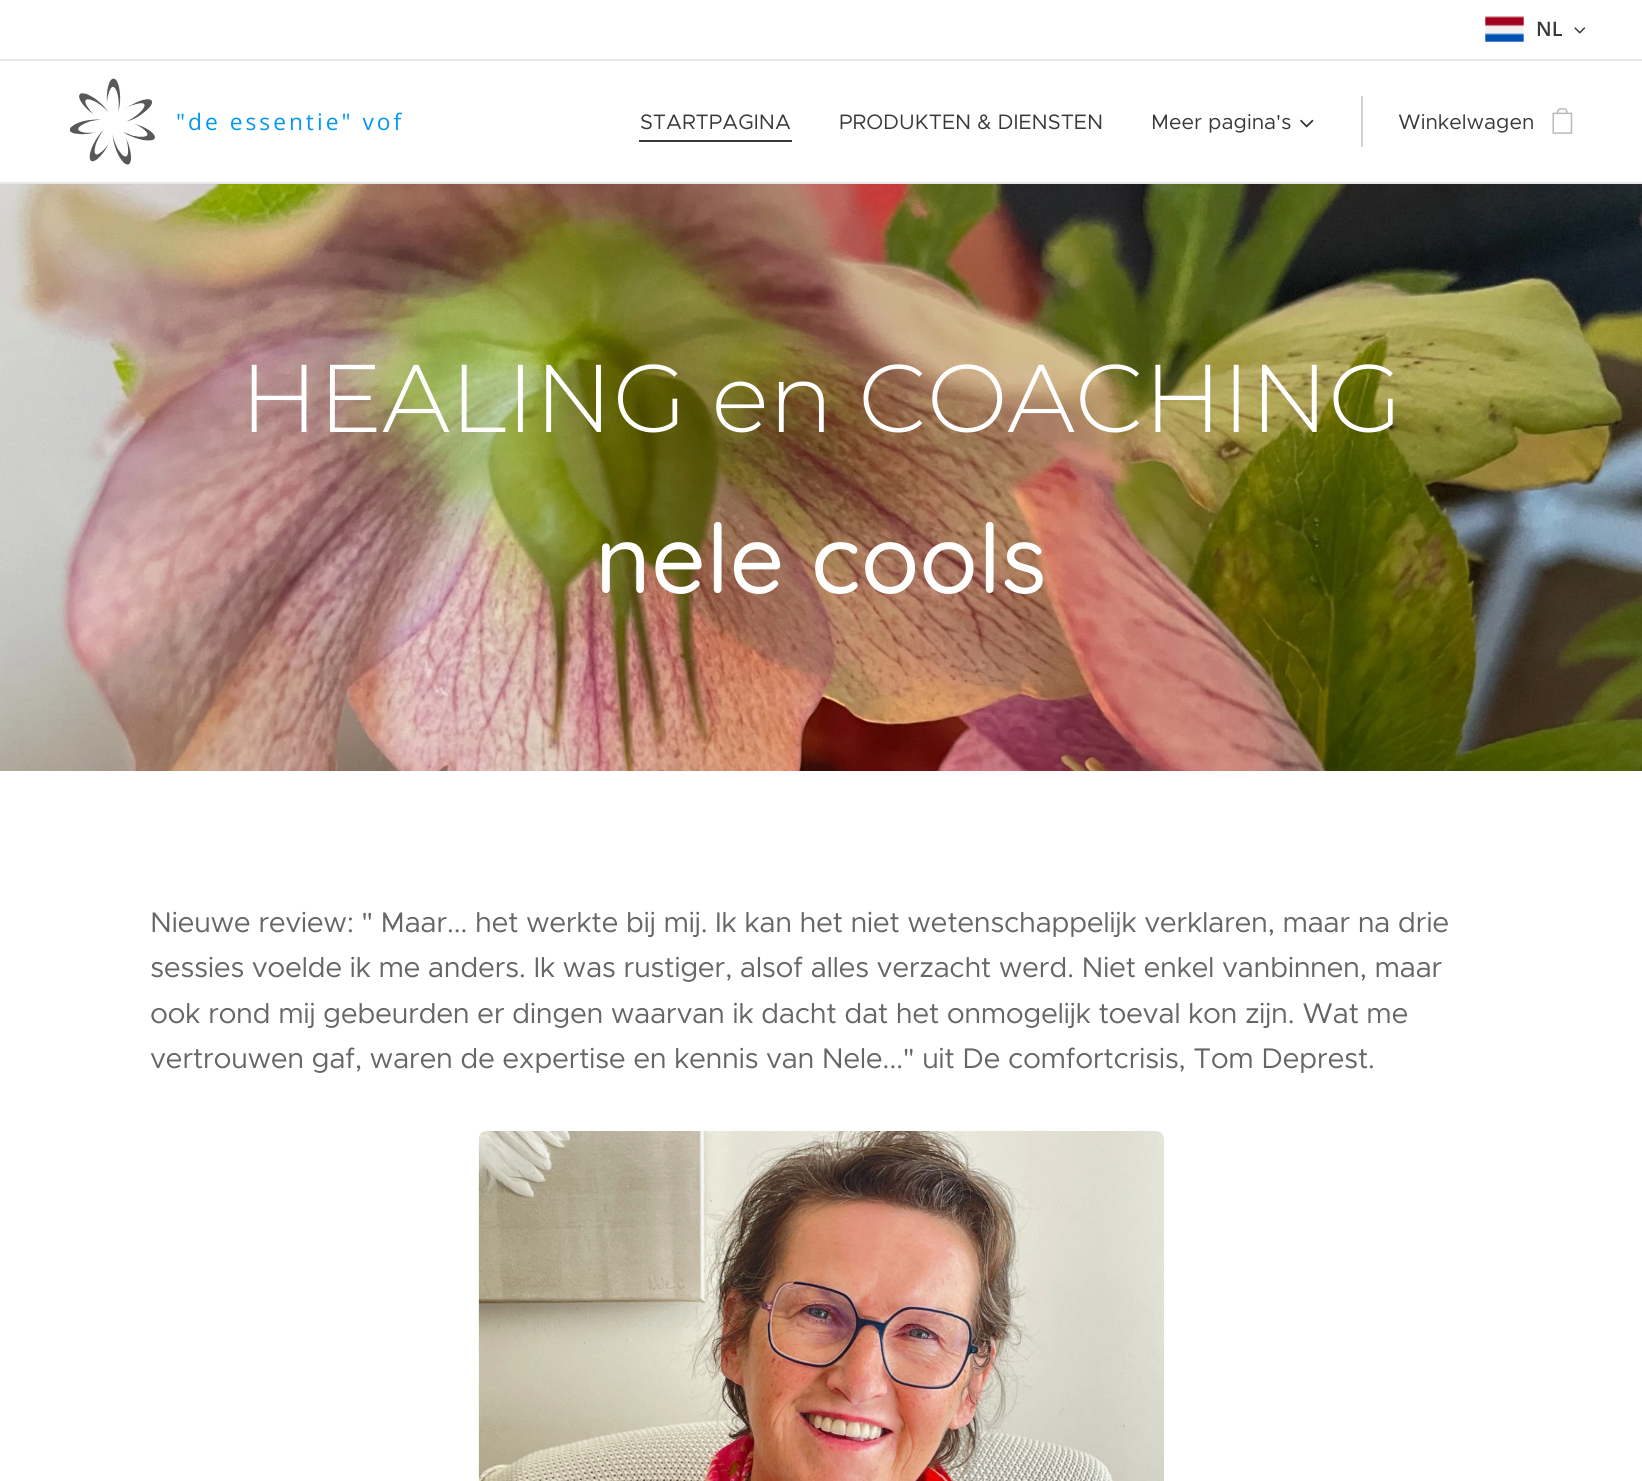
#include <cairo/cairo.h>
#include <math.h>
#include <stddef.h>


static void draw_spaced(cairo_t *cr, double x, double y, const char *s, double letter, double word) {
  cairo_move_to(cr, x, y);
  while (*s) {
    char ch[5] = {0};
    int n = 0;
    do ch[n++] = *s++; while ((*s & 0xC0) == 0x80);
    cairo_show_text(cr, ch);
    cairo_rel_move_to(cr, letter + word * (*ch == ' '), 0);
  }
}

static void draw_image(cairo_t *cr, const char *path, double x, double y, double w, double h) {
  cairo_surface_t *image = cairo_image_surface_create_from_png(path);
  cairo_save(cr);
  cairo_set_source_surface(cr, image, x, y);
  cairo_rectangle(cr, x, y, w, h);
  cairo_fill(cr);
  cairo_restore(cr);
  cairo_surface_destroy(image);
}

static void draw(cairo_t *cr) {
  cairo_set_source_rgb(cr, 1, 1, 1);
  cairo_paint(cr);
  draw_image(cr, "images/1.png", 1485, 16, 39, 26);
  draw_image(cr, "images/2.png", 1574, 27, 12, 7);
  cairo_set_source_rgb(cr, 232 / 255.0, 232 / 255.0, 232 / 255.0);
  cairo_rectangle(cr, 0, 59, 1642, 2);
  cairo_fill(cr);
  draw_image(cr, "images/3.png", 69, 78, 86, 87);
  cairo_set_source_rgb(cr, 57 / 255.0, 57 / 255.0, 57 / 255.0);
  cairo_rectangle(cr, 639, 140, 153, 2);
  cairo_fill(cr);
  draw_image(cr, "images/4.png", 1300, 119, 14, 9);
  cairo_set_source_rgb(cr, 209 / 255.0, 209 / 255.0, 209 / 255.0);
  cairo_rectangle(cr, 1361, 96, 2, 51);
  cairo_fill(cr);
  draw_image(cr, "images/5.png", 1552, 108, 21, 26);
  cairo_set_source_rgb(cr, 232 / 255.0, 232 / 255.0, 232 / 255.0);
  cairo_rectangle(cr, 0, 182, 1642, 2);
  cairo_fill(cr);
  draw_image(cr, "images/6.png", 0, 184, 1642, 587);
  draw_image(cr, "images/7.png", 478, 1131, 686, 350);
  cairo_select_font_face(cr, "Open Sans SemiBold", CAIRO_FONT_SLANT_NORMAL, CAIRO_FONT_WEIGHT_NORMAL);
  cairo_set_font_size(cr, 20);
  cairo_set_source_rgb(cr, 57 / 255.0, 57 / 255.0, 57 / 255.0);
  cairo_move_to(cr, 1536, 36);
  cairo_show_text(cr, "NL");
  cairo_select_font_face(cr, "Open Sans", CAIRO_FONT_SLANT_NORMAL, CAIRO_FONT_WEIGHT_NORMAL);
  cairo_set_font_size(cr, 22.75);
  cairo_set_source_rgb(cr, 0, 151 / 255.0, 245 / 255.0);
  draw_spaced(cr, 176, 130, "\"de essentie\" vof", 3, 0);
  cairo_select_font_face(cr, "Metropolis", CAIRO_FONT_SLANT_NORMAL, CAIRO_FONT_WEIGHT_NORMAL);
  cairo_set_font_size(cr, 21);
  cairo_set_source_rgb(cr, 57 / 255.0, 57 / 255.0, 57 / 255.0);
  cairo_move_to(cr, 640, 129);
  cairo_show_text(cr, "STARTPAGINA");
  cairo_move_to(cr, 839, 129);
  cairo_show_text(cr, "PRODUKTEN & DIENSTEN");
  cairo_move_to(cr, 1151, 129);
  cairo_show_text(cr, "Meer pagina's");
  cairo_move_to(cr, 1398, 129);
  cairo_show_text(cr, "Winkelwagen");
  cairo_select_font_face(cr, "Montserrat Light", CAIRO_FONT_SLANT_NORMAL, CAIRO_FONT_WEIGHT_NORMAL);
  cairo_set_font_size(cr, 96);
  cairo_set_source_rgb(cr, 1, 1, 1);
  cairo_move_to(cr, 240, 432);
  cairo_show_text(cr, "HEALING en COACHING");
  cairo_select_font_face(cr, "Quicksand Medium", CAIRO_FONT_SLANT_NORMAL, CAIRO_FONT_WEIGHT_NORMAL);
  cairo_move_to(cr, 595, 593);
  cairo_show_text(cr, "nele cools");
  cairo_select_font_face(cr, "Metropolis", CAIRO_FONT_SLANT_NORMAL, CAIRO_FONT_WEIGHT_NORMAL);
  cairo_set_font_size(cr, 28.5);
  cairo_set_source_rgb(cr, 102 / 255.0, 102 / 255.0, 102 / 255.0);
  draw_spaced(cr, 150, 932, "Nieuwe review: \" Maar... het werkte bij mij. Ik kan het niet wetenschappelijk verklaren, maar na drie", -0.43, 0);
  draw_spaced(cr, 150, 977, "sessies voelde ik me anders. Ik was rustiger, alsof alles verzacht werd. Niet enkel vanbinnen, maar", -0.43, 0);
  draw_spaced(cr, 150, 1023, "ook rond mij gebeurden er dingen waarvan ik dacht dat het onmogelijk toeval kon zijn. Wat me", -0.43, 0);
  draw_spaced(cr, 150, 1068, "vertrouwen gaf, waren de expertise en kennis van Nele...\" uit De comfortcrisis, Tom Deprest.", -0.43, 0);
}

int main(void) {
  cairo_surface_t *surface = cairo_image_surface_create(CAIRO_FORMAT_RGB24, 1642, 1481);
  cairo_t *cr = cairo_create(surface);
  cairo_font_options_t *options = cairo_font_options_create();
  cairo_font_options_set_hint_metrics(options, CAIRO_HINT_METRICS_OFF);
  cairo_font_options_set_hint_style(options, CAIRO_HINT_STYLE_NONE);
  cairo_set_font_options(cr, options);
  cairo_set_miter_limit(cr, 4);
  draw(cr);
  cairo_surface_write_to_png(surface, "out.png");
  cairo_font_options_destroy(options);
  cairo_destroy(cr);
  cairo_surface_destroy(surface);
  return 0;
}
